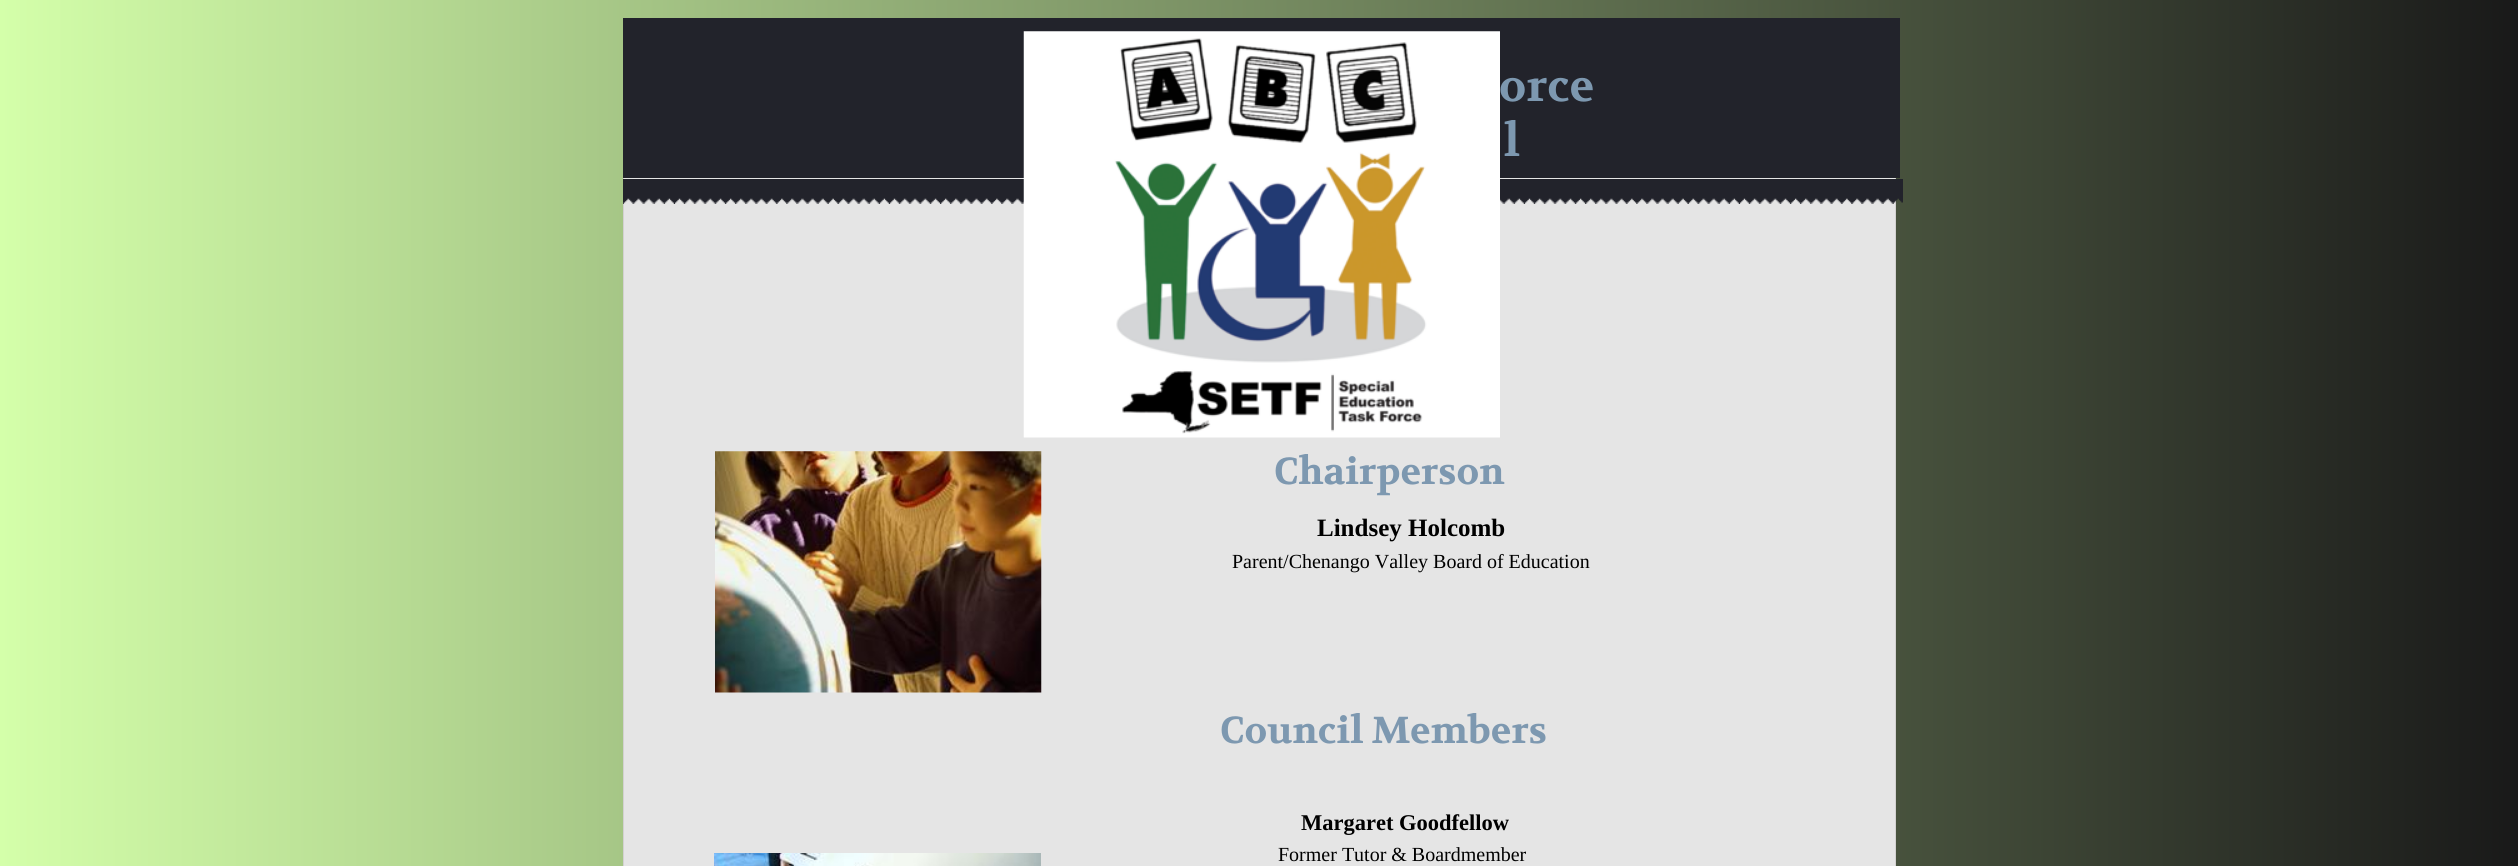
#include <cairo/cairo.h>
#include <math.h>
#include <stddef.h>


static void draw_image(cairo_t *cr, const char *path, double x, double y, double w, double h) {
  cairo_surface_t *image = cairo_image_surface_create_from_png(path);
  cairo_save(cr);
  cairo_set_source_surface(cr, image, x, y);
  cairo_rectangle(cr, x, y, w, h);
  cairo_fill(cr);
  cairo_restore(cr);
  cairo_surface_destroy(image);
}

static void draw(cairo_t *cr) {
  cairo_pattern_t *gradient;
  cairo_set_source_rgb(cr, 1, 1, 1);
  cairo_paint(cr);
  gradient = cairo_pattern_create_linear(0, 433, 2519, 433);
  cairo_pattern_add_color_stop_rgba(gradient, 0, 212 / 255.0, 1, 170 / 255.0, 1);
  cairo_pattern_add_color_stop_rgba(gradient, 1, 25 / 255.0, 25 / 255.0, 25 / 255.0, 1);
  cairo_set_source(cr, gradient);
  cairo_pattern_destroy(gradient);
  cairo_rectangle(cr, 0, 0, 2518, 866);
  cairo_fill(cr);
  cairo_set_source_rgb(cr, 229 / 255.0, 229 / 255.0, 229 / 255.0);
  cairo_rectangle(cr, 624, 178, 1271, 688);
  cairo_fill(cr);
  cairo_set_source_rgb(cr, 211 / 255.0, 209 / 255.0, 209 / 255.0);
  cairo_rectangle(cr, 1895, 178, 1, 688);
  cairo_fill(cr);
  cairo_rectangle(cr, 623, 178, 1, 688);
  cairo_fill(cr);
  cairo_set_source_rgb(cr, 34 / 255.0, 35 / 255.0, 43 / 255.0);
  cairo_rectangle(cr, 623, 18, 1277, 160);
  cairo_fill(cr);
  draw_image(cr, "images/2.png", 623, 179, 1280, 25);
  draw_image(cr, "images/1.png", 1023, 31, 477, 407);
  draw_image(cr, "images/3.png", 715, 451, 327, 242);
  draw_image(cr, "images/4.png", 714, 853, 327, 13);
  cairo_select_font_face(cr, "Volkhov", CAIRO_FONT_SLANT_NORMAL, CAIRO_FONT_WEIGHT_BOLD);
  cairo_set_font_size(cr, 45);
  cairo_set_source_rgb(cr, 125 / 255.0, 152 / 255.0, 176 / 255.0);
  cairo_move_to(cr, 1499, 101);
  cairo_show_text(cr, "orce");
  cairo_move_to(cr, 1504, 156);
  cairo_show_text(cr, "l");
  cairo_set_font_size(cr, 37.5);
  cairo_move_to(cr, 1274, 484);
  cairo_show_text(cr, "Chairperson");
  cairo_select_font_face(cr, "Liberation Serif", CAIRO_FONT_SLANT_NORMAL, CAIRO_FONT_WEIGHT_BOLD);
  cairo_set_font_size(cr, 25);
  cairo_set_source_rgb(cr, 0, 0, 0);
  cairo_move_to(cr, 1317, 536);
  cairo_show_text(cr, "Lindsey Holcomb");
  cairo_select_font_face(cr, "Liberation Serif", CAIRO_FONT_SLANT_NORMAL, CAIRO_FONT_WEIGHT_NORMAL);
  cairo_set_font_size(cr, 20);
  cairo_move_to(cr, 1232, 568);
  cairo_show_text(cr, "Parent/Chenango Valley Board of Education");
  cairo_select_font_face(cr, "Volkhov", CAIRO_FONT_SLANT_NORMAL, CAIRO_FONT_WEIGHT_BOLD);
  cairo_set_font_size(cr, 37.5);
  cairo_set_source_rgb(cr, 125 / 255.0, 152 / 255.0, 176 / 255.0);
  cairo_move_to(cr, 1220, 743);
  cairo_show_text(cr, "Council Members");
  cairo_select_font_face(cr, "Liberation Serif", CAIRO_FONT_SLANT_NORMAL, CAIRO_FONT_WEIGHT_BOLD);
  cairo_set_font_size(cr, 22.5);
  cairo_set_source_rgb(cr, 0, 0, 0);
  cairo_move_to(cr, 1301, 830);
  cairo_show_text(cr, "Margaret Goodfellow");
  cairo_select_font_face(cr, "Liberation Serif", CAIRO_FONT_SLANT_NORMAL, CAIRO_FONT_WEIGHT_NORMAL);
  cairo_set_font_size(cr, 20);
  cairo_move_to(cr, 1278, 861);
  cairo_show_text(cr, "Former Tutor & Boardmember");
}

int main(void) {
  cairo_surface_t *surface = cairo_image_surface_create(CAIRO_FORMAT_RGB24, 2518, 866);
  cairo_t *cr = cairo_create(surface);
  cairo_font_options_t *options = cairo_font_options_create();
  cairo_font_options_set_hint_metrics(options, CAIRO_HINT_METRICS_OFF);
  cairo_font_options_set_hint_style(options, CAIRO_HINT_STYLE_NONE);
  cairo_set_font_options(cr, options);
  cairo_set_miter_limit(cr, 4);
  draw(cr);
  cairo_surface_write_to_png(surface, "out.png");
  cairo_font_options_destroy(options);
  cairo_destroy(cr);
  cairo_surface_destroy(surface);
  return 0;
}
